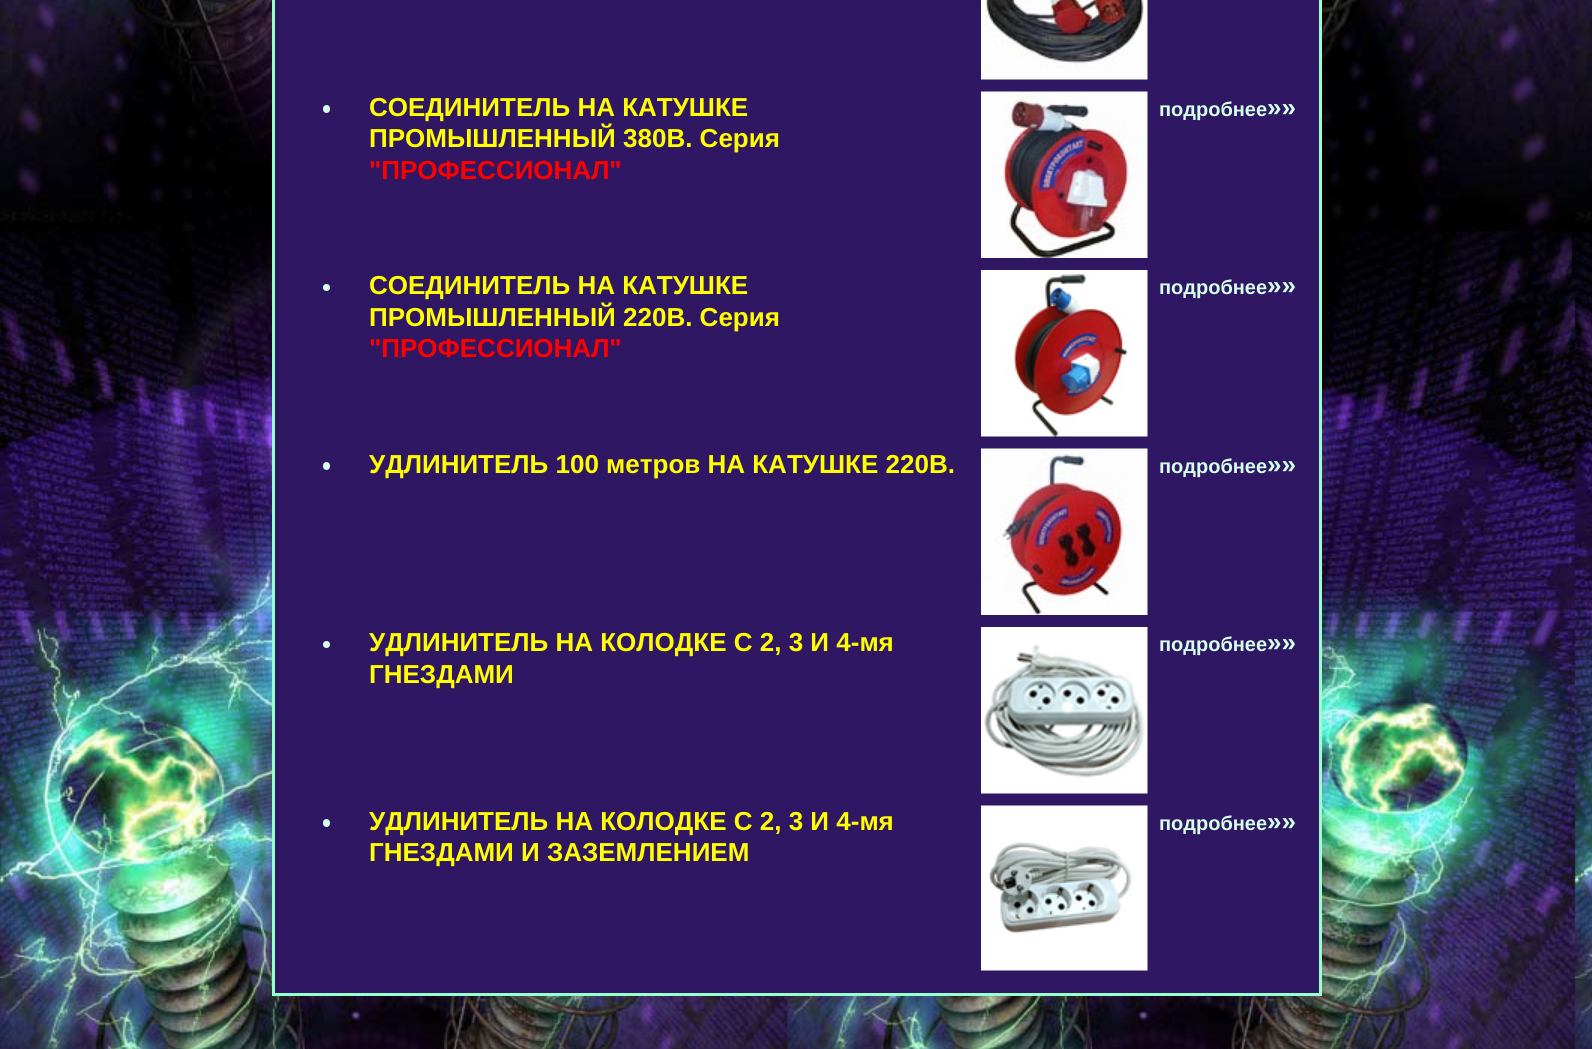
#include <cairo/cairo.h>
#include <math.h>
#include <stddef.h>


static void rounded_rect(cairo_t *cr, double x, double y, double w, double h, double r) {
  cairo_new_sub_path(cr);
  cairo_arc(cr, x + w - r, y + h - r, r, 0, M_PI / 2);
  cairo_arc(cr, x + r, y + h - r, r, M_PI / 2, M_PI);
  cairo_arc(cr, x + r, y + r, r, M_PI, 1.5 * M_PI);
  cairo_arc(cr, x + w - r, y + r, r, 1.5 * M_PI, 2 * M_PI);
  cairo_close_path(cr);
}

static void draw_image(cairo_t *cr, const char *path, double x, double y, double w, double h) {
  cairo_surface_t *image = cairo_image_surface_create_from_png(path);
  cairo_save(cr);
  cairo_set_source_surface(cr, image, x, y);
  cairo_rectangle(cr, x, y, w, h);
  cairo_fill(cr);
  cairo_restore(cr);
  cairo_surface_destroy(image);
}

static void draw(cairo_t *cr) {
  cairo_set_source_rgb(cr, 1, 1, 1);
  cairo_paint(cr);
  draw_image(cr, "images/1.png", 0, 0, 1592, 1049);
  cairo_set_source_rgb(cr, 153 / 255.0, 1, 204 / 255.0);
  cairo_rectangle(cr, 272, 0, 1050, 996);
  cairo_fill(cr);
  cairo_set_source_rgb(cr, 47 / 255.0, 23 / 255.0, 99 / 255.0);
  cairo_rectangle(cr, 275, 0, 1044, 993);
  cairo_fill(cr);
  draw_image(cr, "images/2.png", 981, 0, 167, 80);
  cairo_set_source_rgb(cr, 213 / 255.0, 1, 234 / 255.0);
  rounded_rect(cr, 323, 105, 7, 8, 3.5);
  cairo_fill(cr);
  draw_image(cr, "images/3.png", 981, 91, 167, 167);
  cairo_arc(cr, 326.5, 287.5, 3.5, 0, 2 * M_PI);
  cairo_fill(cr);
  draw_image(cr, "images/4.png", 981, 270, 167, 167);
  rounded_rect(cr, 323, 462, 7, 8, 3.5);
  cairo_fill(cr);
  draw_image(cr, "images/5.png", 981, 448, 167, 167);
  cairo_arc(cr, 326.5, 644.5, 3.5, 0, 2 * M_PI);
  cairo_fill(cr);
  draw_image(cr, "images/6.png", 981, 627, 167, 167);
  rounded_rect(cr, 323, 819, 7, 8, 3.5);
  cairo_fill(cr);
  draw_image(cr, "images/7.png", 981, 805, 167, 166);
  cairo_select_font_face(cr, "Liberation Sans", CAIRO_FONT_SLANT_NORMAL, CAIRO_FONT_WEIGHT_BOLD);
  cairo_set_font_size(cr, 26);
  cairo_set_source_rgb(cr, 1, 1, 0);
  cairo_move_to(cr, 369, 116);
  cairo_show_text(cr, "СОЕДИНИТЕЛЬ НА КАТУШКЕ");
  cairo_move_to(cr, 369, 147);
  cairo_show_text(cr, "ПРОМЫШЛЕННЫЙ 380B. Серия");
  cairo_set_source_rgb(cr, 1, 0, 0);
  cairo_move_to(cr, 369, 179);
  cairo_show_text(cr, "\"ПРОФЕССИОНАЛ\"");
  cairo_set_font_size(cr, 20);
  cairo_set_source_rgb(cr, 213 / 255.0, 1, 234 / 255.0);
  cairo_move_to(cr, 1159, 116);
  cairo_show_text(cr, "подробнее");
  cairo_set_font_size(cr, 26);
  cairo_move_to(cr, 1267, 116);
  cairo_show_text(cr, "»»");
  cairo_set_source_rgb(cr, 1, 1, 0);
  cairo_move_to(cr, 369, 294);
  cairo_show_text(cr, "СОЕДИНИТЕЛЬ НА КАТУШКЕ");
  cairo_move_to(cr, 369, 326);
  cairo_show_text(cr, "ПРОМЫШЛЕННЫЙ 220B. Серия");
  cairo_set_source_rgb(cr, 1, 0, 0);
  cairo_move_to(cr, 369, 357);
  cairo_show_text(cr, "\"ПРОФЕССИОНАЛ\"");
  cairo_set_font_size(cr, 20);
  cairo_set_source_rgb(cr, 213 / 255.0, 1, 234 / 255.0);
  cairo_move_to(cr, 1159, 294);
  cairo_show_text(cr, "подробнее");
  cairo_set_font_size(cr, 26);
  cairo_move_to(cr, 1267, 294);
  cairo_show_text(cr, "»»");
  cairo_set_source_rgb(cr, 1, 1, 0);
  cairo_move_to(cr, 369, 473);
  cairo_show_text(cr, "УДЛИНИТЕЛЬ 100 метров НА КАТУШКЕ 220B.");
  cairo_set_font_size(cr, 20);
  cairo_set_source_rgb(cr, 213 / 255.0, 1, 234 / 255.0);
  cairo_move_to(cr, 1159, 473);
  cairo_show_text(cr, "подробнее");
  cairo_set_font_size(cr, 26);
  cairo_move_to(cr, 1267, 473);
  cairo_show_text(cr, "»»");
  cairo_set_source_rgb(cr, 1, 1, 0);
  cairo_move_to(cr, 369, 651);
  cairo_show_text(cr, "УДЛИНИТЕЛЬ НА КОЛОДКЕ С 2, 3 И 4-мя");
  cairo_move_to(cr, 369, 683);
  cairo_show_text(cr, "ГНЕЗДАМИ");
  cairo_set_font_size(cr, 20);
  cairo_set_source_rgb(cr, 213 / 255.0, 1, 234 / 255.0);
  cairo_move_to(cr, 1159, 651);
  cairo_show_text(cr, "подробнее");
  cairo_set_font_size(cr, 26);
  cairo_move_to(cr, 1267, 651);
  cairo_show_text(cr, "»»");
  cairo_set_source_rgb(cr, 1, 1, 0);
  cairo_move_to(cr, 369, 830);
  cairo_show_text(cr, "УДЛИНИТЕЛЬ НА КОЛОДКЕ С 2, 3 И 4-мя");
  cairo_move_to(cr, 369, 861);
  cairo_show_text(cr, "ГНЕЗДАМИ И ЗАЗЕМЛЕНИЕМ");
  cairo_set_font_size(cr, 20);
  cairo_set_source_rgb(cr, 213 / 255.0, 1, 234 / 255.0);
  cairo_move_to(cr, 1159, 830);
  cairo_show_text(cr, "подробнее");
  cairo_set_font_size(cr, 26);
  cairo_move_to(cr, 1267, 830);
  cairo_show_text(cr, "»»");
}

int main(void) {
  cairo_surface_t *surface = cairo_image_surface_create(CAIRO_FORMAT_RGB24, 1592, 1049);
  cairo_t *cr = cairo_create(surface);
  cairo_font_options_t *options = cairo_font_options_create();
  cairo_font_options_set_hint_metrics(options, CAIRO_HINT_METRICS_OFF);
  cairo_font_options_set_hint_style(options, CAIRO_HINT_STYLE_NONE);
  cairo_set_font_options(cr, options);
  cairo_set_miter_limit(cr, 4);
  draw(cr);
  cairo_surface_write_to_png(surface, "out.png");
  cairo_font_options_destroy(options);
  cairo_destroy(cr);
  cairo_surface_destroy(surface);
  return 0;
}
